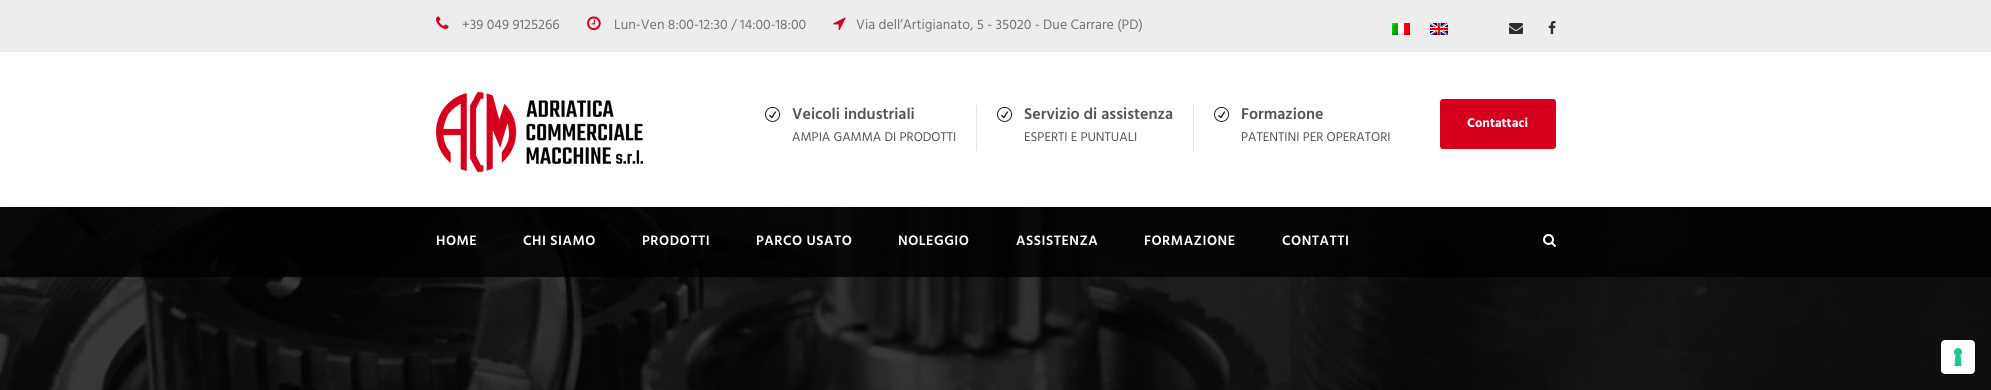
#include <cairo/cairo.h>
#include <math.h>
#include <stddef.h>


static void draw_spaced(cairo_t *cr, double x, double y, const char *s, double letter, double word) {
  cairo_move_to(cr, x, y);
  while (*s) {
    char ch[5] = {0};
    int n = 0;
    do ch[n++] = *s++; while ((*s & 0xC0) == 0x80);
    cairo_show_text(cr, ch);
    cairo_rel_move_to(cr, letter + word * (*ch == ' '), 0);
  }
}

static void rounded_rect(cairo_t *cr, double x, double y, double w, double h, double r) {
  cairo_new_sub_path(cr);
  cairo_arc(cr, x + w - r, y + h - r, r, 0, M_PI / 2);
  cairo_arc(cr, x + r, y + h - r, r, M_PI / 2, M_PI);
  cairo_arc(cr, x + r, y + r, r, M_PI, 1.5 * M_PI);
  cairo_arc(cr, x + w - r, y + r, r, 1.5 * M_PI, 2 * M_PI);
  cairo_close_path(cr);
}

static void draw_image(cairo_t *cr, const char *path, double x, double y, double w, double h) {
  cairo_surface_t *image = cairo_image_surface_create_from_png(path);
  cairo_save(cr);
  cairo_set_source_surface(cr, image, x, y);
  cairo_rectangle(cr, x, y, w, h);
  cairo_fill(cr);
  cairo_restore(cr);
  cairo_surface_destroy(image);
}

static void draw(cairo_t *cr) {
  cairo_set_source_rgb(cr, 1, 1, 1);
  cairo_paint(cr);
  cairo_set_source_rgb(cr, 237 / 255.0, 237 / 255.0, 237 / 255.0);
  cairo_rectangle(cr, 0, 0, 1991, 52);
  cairo_fill(cr);
  draw_image(cr, "images/1.png", 436, 16, 13, 13);
  draw_image(cr, "images/2.png", 587, 16, 14, 15);
  draw_image(cr, "images/3.png", 833, 17, 13, 14);
  draw_image(cr, "images/4.png", 1392, 23, 18, 12);
  draw_image(cr, "images/5.png", 1430, 23, 18, 12);
  draw_image(cr, "images/6.png", 1509, 23, 14, 11);
  draw_image(cr, "images/7.png", 1548, 21, 8, 13);
  draw_image(cr, "images/8.png", 436, 92, 207, 80);
  draw_image(cr, "images/9.png", 765, 106, 15, 16);
  cairo_set_source_rgb(cr, 230 / 255.0, 230 / 255.0, 230 / 255.0);
  cairo_rectangle(cr, 976, 105, 1, 46);
  cairo_fill(cr);
  draw_image(cr, "images/9.png", 997, 106, 15, 16);
  cairo_rectangle(cr, 1193, 105, 1, 46);
  cairo_fill(cr);
  draw_image(cr, "images/9.png", 1214, 106, 15, 16);
  cairo_set_source_rgb(cr, 214 / 255.0, 0, 28 / 255.0);
  rounded_rect(cr, 1441, 100, 114, 48, 2);
  cairo_fill_preserve(cr);
  cairo_stroke(cr);
  draw_image(cr, "images/10.png", 0, 207, 1991, 183);
  cairo_set_source_rgba(cr, 0, 0, 0, 0.82);
  cairo_rectangle(cr, 0, 207, 1991, 70);
  cairo_fill(cr);
  draw_image(cr, "images/11.png", 1543, 234, 13, 13);
  rounded_rect(cr, 1940.5, 339.5, 35, 35, 4.5);
  cairo_set_source_rgb(cr, 12 / 255.0, 12 / 255.0, 12 / 255.0);
  cairo_set_line_width(cr, 1);
  cairo_stroke(cr);
  cairo_set_source_rgb(cr, 1, 1, 1);
  rounded_rect(cr, 1941, 340, 34, 34, 4);
  cairo_fill(cr);
  draw_image(cr, "images/12.png", 1954, 348, 8, 18);
  cairo_select_font_face(cr, "Hind", CAIRO_FONT_SLANT_NORMAL, CAIRO_FONT_WEIGHT_NORMAL);
  cairo_set_font_size(cr, 14);
  cairo_set_source_rgb(cr, 114 / 255.0, 114 / 255.0, 114 / 255.0);
  cairo_move_to(cr, 462, 29);
  cairo_show_text(cr, "+39 049 9125266");
  cairo_move_to(cr, 614, 29);
  cairo_show_text(cr, "Lun-Ven 8:00-12:30 / 14:00-18:00");
  cairo_move_to(cr, 856, 29);
  cairo_show_text(cr, "Via dell’Artigianato, 5 - 35020 - Due Carrare (PD)");
  cairo_select_font_face(cr, "Hind SemiBold", CAIRO_FONT_SLANT_NORMAL, CAIRO_FONT_WEIGHT_NORMAL);
  cairo_set_font_size(cr, 16);
  cairo_set_source_rgb(cr, 84 / 255.0, 84 / 255.0, 84 / 255.0);
  cairo_move_to(cr, 792, 119);
  cairo_show_text(cr, "Veicoli industriali");
  cairo_select_font_face(cr, "Hind", CAIRO_FONT_SLANT_NORMAL, CAIRO_FONT_WEIGHT_NORMAL);
  cairo_set_font_size(cr, 13);
  cairo_move_to(cr, 792, 141);
  cairo_show_text(cr, "AMPIA GAMMA DI PRODOTTI");
  cairo_select_font_face(cr, "Hind SemiBold", CAIRO_FONT_SLANT_NORMAL, CAIRO_FONT_WEIGHT_NORMAL);
  cairo_set_font_size(cr, 16);
  cairo_move_to(cr, 1024, 119);
  cairo_show_text(cr, "Servizio di assistenza");
  cairo_select_font_face(cr, "Hind", CAIRO_FONT_SLANT_NORMAL, CAIRO_FONT_WEIGHT_NORMAL);
  cairo_set_font_size(cr, 13);
  cairo_move_to(cr, 1024, 141);
  cairo_show_text(cr, "ESPERTI E PUNTUALI");
  cairo_select_font_face(cr, "Hind SemiBold", CAIRO_FONT_SLANT_NORMAL, CAIRO_FONT_WEIGHT_NORMAL);
  cairo_set_font_size(cr, 16);
  cairo_move_to(cr, 1241, 119);
  cairo_show_text(cr, "Formazione");
  cairo_select_font_face(cr, "Hind", CAIRO_FONT_SLANT_NORMAL, CAIRO_FONT_WEIGHT_NORMAL);
  cairo_set_font_size(cr, 13);
  cairo_move_to(cr, 1241, 141);
  cairo_show_text(cr, "PATENTINI PER OPERATORI");
  cairo_select_font_face(cr, "Hind", CAIRO_FONT_SLANT_NORMAL, CAIRO_FONT_WEIGHT_BOLD);
  cairo_set_source_rgb(cr, 1, 1, 1);
  cairo_move_to(cr, 1467, 127);
  cairo_show_text(cr, "Contattaci");
  cairo_select_font_face(cr, "Hind SemiBold", CAIRO_FONT_SLANT_NORMAL, CAIRO_FONT_WEIGHT_NORMAL);
  cairo_set_font_size(cr, 14);
  draw_spaced(cr, 436, 245, "HOME", 0.5, 0);
  draw_spaced(cr, 523, 245, "CHI SIAMO", 0.5, 0);
  draw_spaced(cr, 642, 245, "PRODOTTI", 0.5, 0);
  draw_spaced(cr, 756, 245, "PARCO USATO", 0.5, 0);
  draw_spaced(cr, 898, 245, "NOLEGGIO", 0.5, 0);
  draw_spaced(cr, 1016, 245, "ASSISTENZA", 0.5, 0);
  draw_spaced(cr, 1144, 245, "FORMAZIONE", 0.5, 0);
  draw_spaced(cr, 1282, 245, "CONTATTI", 0.5, 0);
}

int main(void) {
  cairo_surface_t *surface = cairo_image_surface_create(CAIRO_FORMAT_RGB24, 1991, 390);
  cairo_t *cr = cairo_create(surface);
  cairo_font_options_t *options = cairo_font_options_create();
  cairo_font_options_set_hint_metrics(options, CAIRO_HINT_METRICS_OFF);
  cairo_font_options_set_hint_style(options, CAIRO_HINT_STYLE_NONE);
  cairo_set_font_options(cr, options);
  cairo_set_miter_limit(cr, 4);
  draw(cr);
  cairo_surface_write_to_png(surface, "out.png");
  cairo_font_options_destroy(options);
  cairo_destroy(cr);
  cairo_surface_destroy(surface);
  return 0;
}
